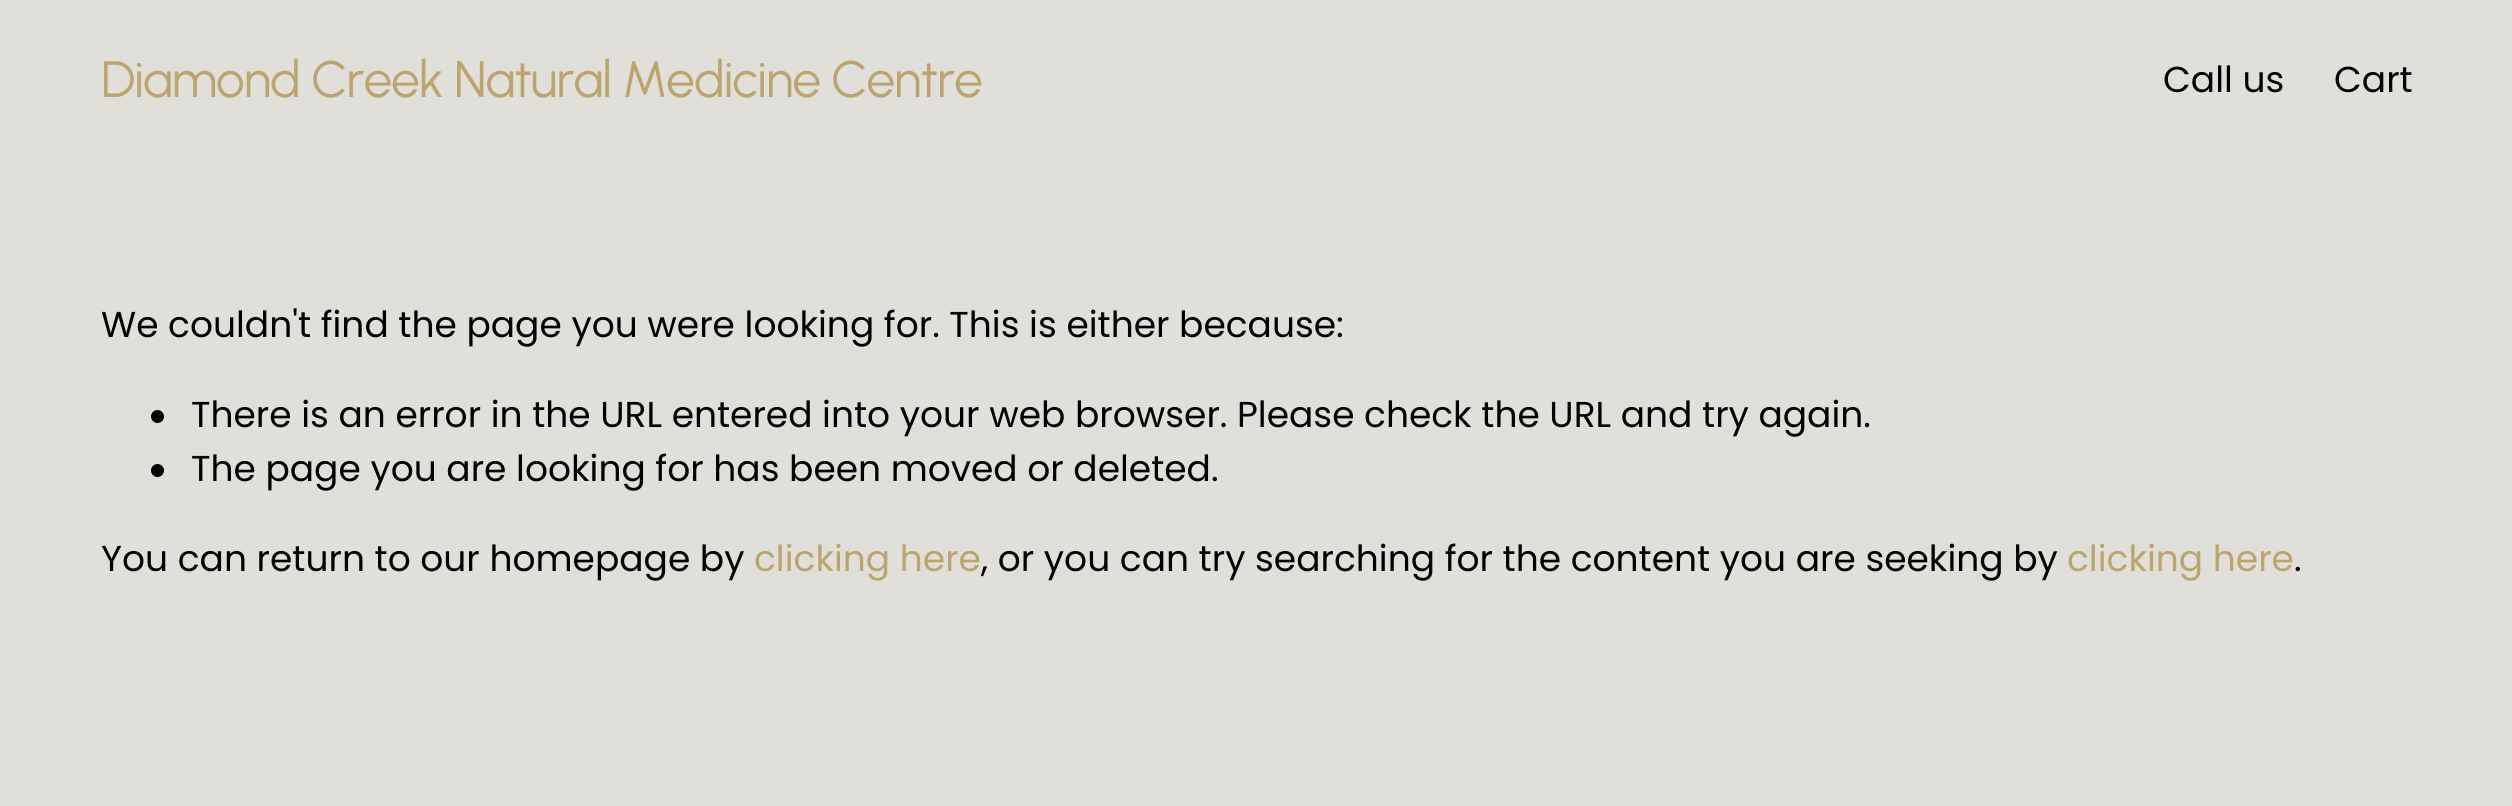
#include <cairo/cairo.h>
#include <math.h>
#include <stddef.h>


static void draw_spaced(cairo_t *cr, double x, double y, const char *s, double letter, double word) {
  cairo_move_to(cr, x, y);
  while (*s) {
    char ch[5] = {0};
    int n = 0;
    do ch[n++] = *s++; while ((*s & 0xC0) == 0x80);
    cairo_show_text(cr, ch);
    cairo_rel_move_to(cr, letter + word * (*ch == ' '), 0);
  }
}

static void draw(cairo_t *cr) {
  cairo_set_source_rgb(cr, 225 / 255.0, 223 / 255.0, 217 / 255.0);
  cairo_paint(cr);
  cairo_set_source_rgb(cr, 0, 0, 0);
  cairo_arc(cr, 157.5, 416.5, 6.5, 0, 2 * M_PI);
  cairo_fill(cr);
  cairo_arc(cr, 157.5, 470.5, 6.5, 0, 2 * M_PI);
  cairo_fill(cr);
  cairo_select_font_face(cr, "Urbanist", CAIRO_FONT_SLANT_NORMAL, CAIRO_FONT_WEIGHT_NORMAL);
  cairo_set_font_size(cr, 51.1);
  cairo_set_source_rgb(cr, 187 / 255.0, 164 / 255.0, 109 / 255.0);
  draw_spaced(cr, 101, 97, "Diamond Creek Natural Medicine Centre", -1, 0);
  cairo_select_font_face(cr, "Poppins", CAIRO_FONT_SLANT_NORMAL, CAIRO_FONT_WEIGHT_NORMAL);
  cairo_set_font_size(cr, 36);
  cairo_set_source_rgb(cr, 0, 0, 0);
  cairo_move_to(cr, 2163, 92);
  cairo_show_text(cr, "Call us");
  cairo_move_to(cr, 2334, 92);
  cairo_show_text(cr, "Cart");
  cairo_move_to(cr, 101, 337);
  cairo_show_text(cr, "We couldn't find the page you were looking for. This is either because:");
  cairo_move_to(cr, 191, 427);
  cairo_show_text(cr, "There is an error in the URL entered into your web browser. Please check the URL and try again.");
  cairo_move_to(cr, 191, 481);
  cairo_show_text(cr, "The page you are looking for has been moved or deleted.");
  cairo_move_to(cr, 101, 571);
  cairo_show_text(cr, "You can return to our homepage by");
  cairo_set_source_rgb(cr, 187 / 255.0, 164 / 255.0, 109 / 255.0);
  cairo_move_to(cr, 754, 571);
  cairo_show_text(cr, "clicking here");
  cairo_set_source_rgb(cr, 0, 0, 0);
  cairo_move_to(cr, 981, 571);
  cairo_show_text(cr, ", or you can try searching for the content you are seeking by");
  cairo_set_source_rgb(cr, 187 / 255.0, 164 / 255.0, 109 / 255.0);
  cairo_move_to(cr, 2067, 571);
  cairo_show_text(cr, "clicking here");
  cairo_set_source_rgb(cr, 0, 0, 0);
  cairo_move_to(cr, 2294, 571);
  cairo_show_text(cr, ".");
}

int main(void) {
  cairo_surface_t *surface = cairo_image_surface_create(CAIRO_FORMAT_RGB24, 2512, 806);
  cairo_t *cr = cairo_create(surface);
  cairo_font_options_t *options = cairo_font_options_create();
  cairo_font_options_set_hint_metrics(options, CAIRO_HINT_METRICS_OFF);
  cairo_font_options_set_hint_style(options, CAIRO_HINT_STYLE_NONE);
  cairo_set_font_options(cr, options);
  cairo_set_miter_limit(cr, 4);
  draw(cr);
  cairo_surface_write_to_png(surface, "out.png");
  cairo_font_options_destroy(options);
  cairo_destroy(cr);
  cairo_surface_destroy(surface);
  return 0;
}
